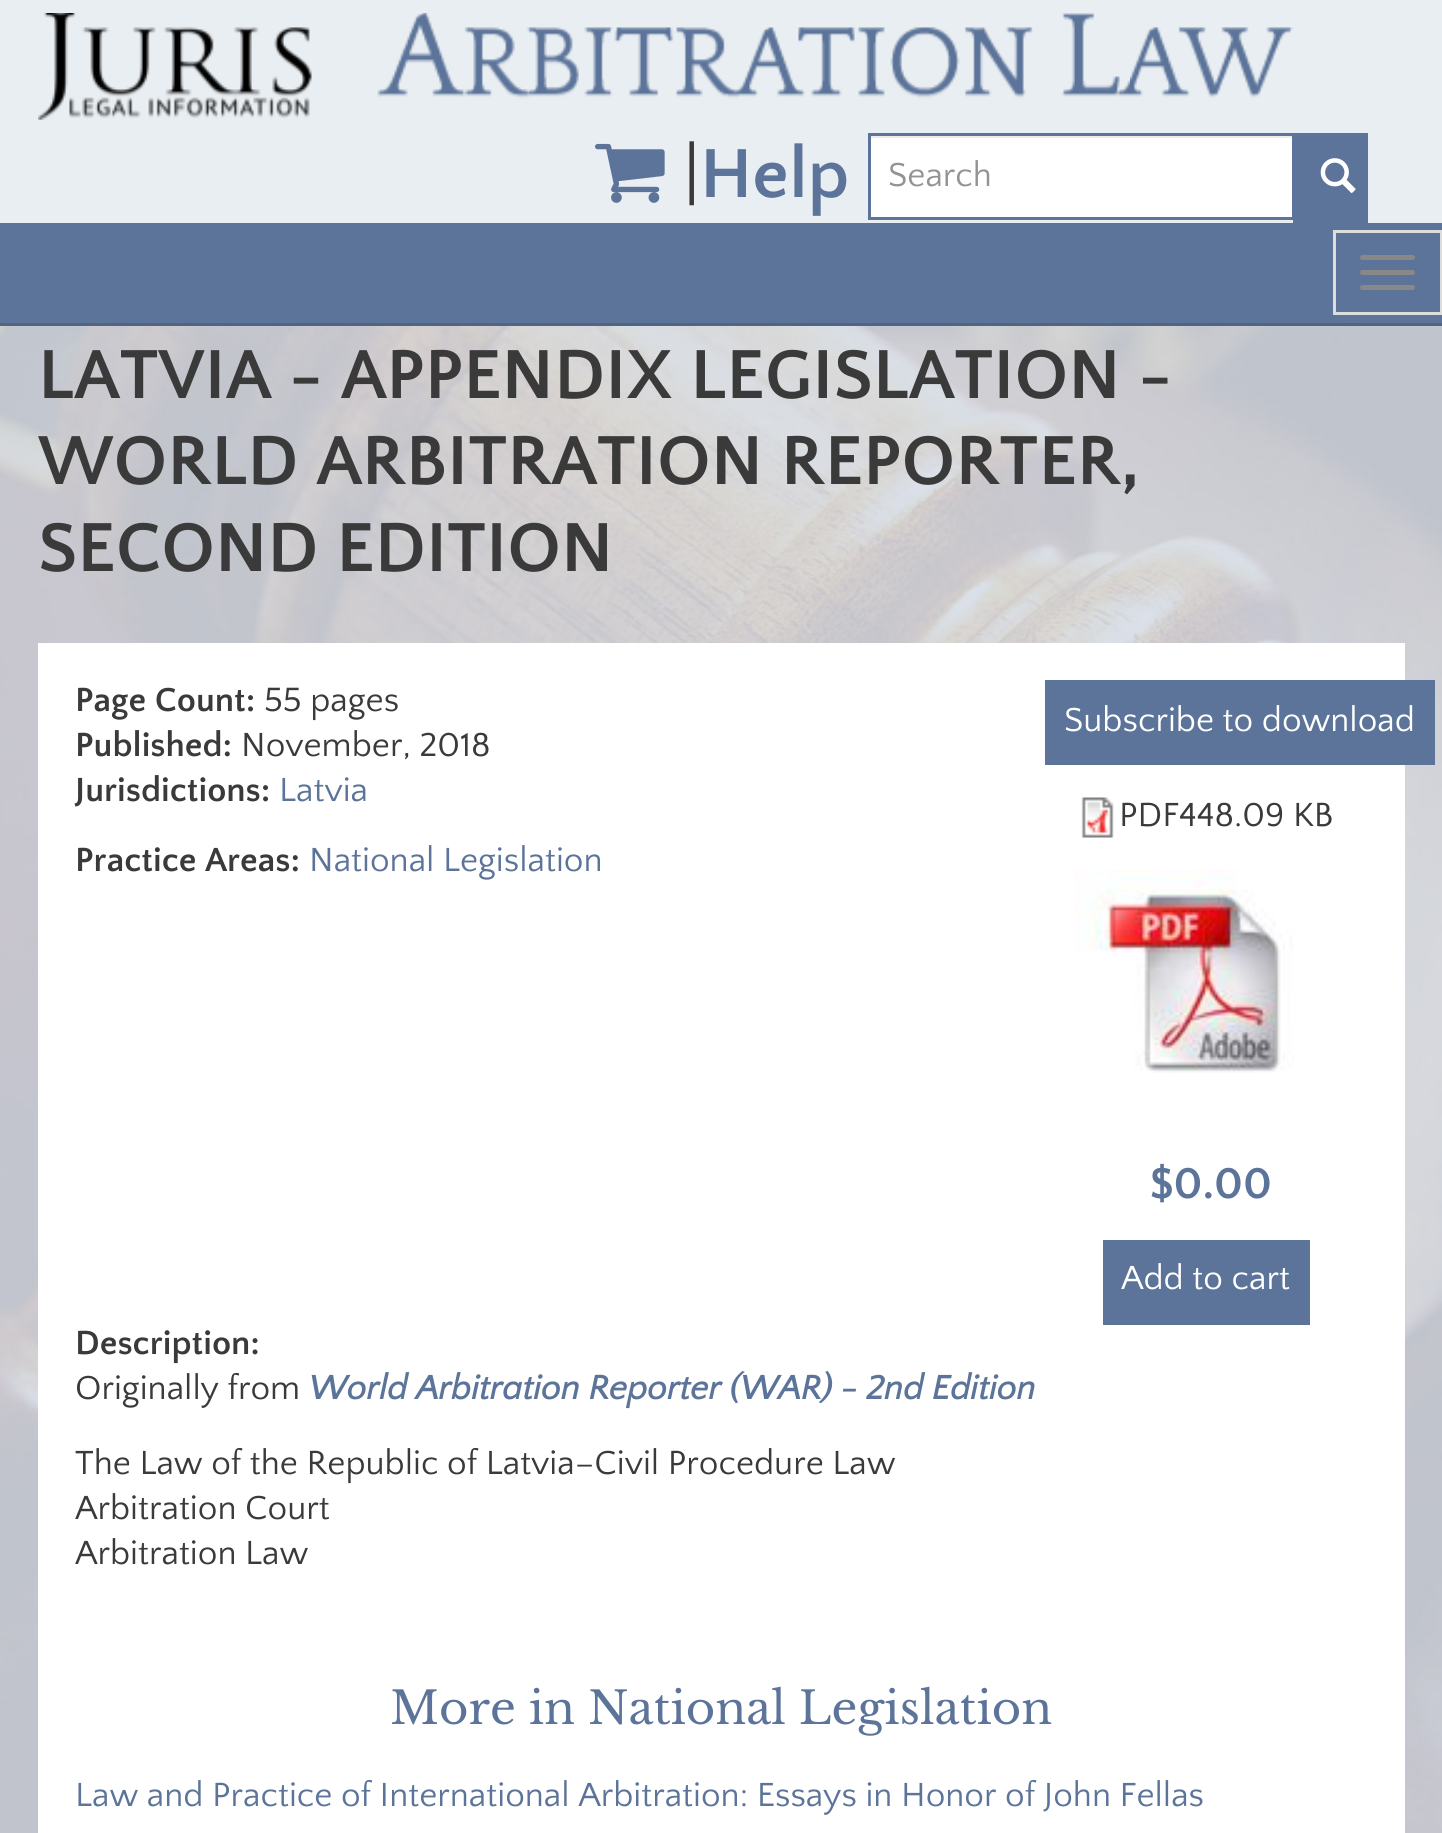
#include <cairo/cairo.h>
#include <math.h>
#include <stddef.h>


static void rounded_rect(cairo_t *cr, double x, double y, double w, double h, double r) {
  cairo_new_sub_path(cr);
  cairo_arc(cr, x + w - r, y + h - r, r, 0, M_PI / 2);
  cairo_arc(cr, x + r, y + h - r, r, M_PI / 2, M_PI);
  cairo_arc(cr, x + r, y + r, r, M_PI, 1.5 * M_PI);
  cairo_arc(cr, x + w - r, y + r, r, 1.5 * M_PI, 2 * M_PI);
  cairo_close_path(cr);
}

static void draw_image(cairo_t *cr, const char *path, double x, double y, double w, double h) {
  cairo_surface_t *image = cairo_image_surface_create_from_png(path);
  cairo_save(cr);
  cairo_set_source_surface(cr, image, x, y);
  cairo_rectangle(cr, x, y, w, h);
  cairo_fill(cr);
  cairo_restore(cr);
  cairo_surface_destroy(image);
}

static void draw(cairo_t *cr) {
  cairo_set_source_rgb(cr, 1, 1, 1);
  cairo_paint(cr);
  draw_image(cr, "images/1.png", 0, 326, 1442, 1507);
  cairo_set_source_rgb(cr, 233 / 255.0, 238 / 255.0, 242 / 255.0);
  cairo_rectangle(cr, 0, 0, 1442, 223);
  cairo_fill(cr);
  draw_image(cr, "images/2.png", 38, 13, 1255, 107);
  draw_image(cr, "images/3.png", 595, 143, 70, 60);
  cairo_set_source_rgb(cr, 1, 1, 1);
  cairo_rectangle(cr, 871, 138, 421, 79);
  cairo_fill(cr);
  cairo_set_source_rgb(cr, 236 / 255.0, 236 / 255.0, 236 / 255.0);
  cairo_rectangle(cr, 870, 136, 423, 2);
  cairo_fill(cr);
  cairo_set_source_rgb(cr, 92 / 255.0, 116 / 255.0, 153 / 255.0);
  cairo_rectangle(cr, 1293, 133, 75, 90);
  cairo_fill(cr);
  cairo_rectangle(cr, 869.5, 134.5, 424, 84);
  cairo_set_line_width(cr, 3);
  cairo_stroke(cr);
  draw_image(cr, "images/4.png", 1320, 158, 36, 35);
  cairo_rectangle(cr, 0, 223, 1442, 100);
  cairo_fill(cr);
  cairo_set_source_rgb(cr, 80 / 255.0, 100 / 255.0, 132 / 255.0);
  cairo_rectangle(cr, 0, 323, 1442, 3);
  cairo_fill(cr);
  cairo_rectangle(cr, 1334.5, 231.5, 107, 82);
  cairo_set_source_rgb(cr, 221 / 255.0, 221 / 255.0, 221 / 255.0);
  cairo_stroke(cr);
  cairo_set_source_rgb(cr, 136 / 255.0, 136 / 255.0, 136 / 255.0);
  rounded_rect(cr, 1360, 255, 55, 5, 2.5);
  cairo_fill(cr);
  rounded_rect(cr, 1360, 270, 55, 5, 2.5);
  cairo_fill(cr);
  rounded_rect(cr, 1360, 285, 55, 5, 2.5);
  cairo_fill(cr);
  cairo_set_source_rgb(cr, 1, 1, 1);
  cairo_rectangle(cr, 38, 643, 1367, 1190);
  cairo_fill(cr);
  cairo_set_source_rgb(cr, 92 / 255.0, 116 / 255.0, 153 / 255.0);
  cairo_rectangle(cr, 1045, 680, 390, 85);
  cairo_fill(cr);
  draw_image(cr, "images/5.png", 1081, 797, 33, 41);
  draw_image(cr, "images/6.png", 1075, 870, 219, 203);
  cairo_rectangle(cr, 1103, 1240, 207, 85);
  cairo_fill(cr);
  cairo_select_font_face(cr, "Quattrocento Sans", CAIRO_FONT_SLANT_NORMAL, CAIRO_FONT_WEIGHT_NORMAL);
  cairo_set_font_size(cr, 72.5);
  cairo_set_source_rgb(cr, 58 / 255.0, 58 / 255.0, 58 / 255.0);
  cairo_move_to(cr, 683, 197);
  cairo_show_text(cr, "|");
  cairo_select_font_face(cr, "Quattrocento Sans", CAIRO_FONT_SLANT_NORMAL, CAIRO_FONT_WEIGHT_BOLD);
  cairo_set_source_rgb(cr, 92 / 255.0, 116 / 255.0, 153 / 255.0);
  cairo_move_to(cr, 700, 197);
  cairo_show_text(cr, "Help");
  cairo_select_font_face(cr, "Quattrocento Sans", CAIRO_FONT_SLANT_NORMAL, CAIRO_FONT_WEIGHT_NORMAL);
  cairo_set_font_size(cr, 35);
  cairo_set_source_rgb(cr, 147 / 255.0, 147 / 255.0, 147 / 255.0);
  cairo_move_to(cr, 888, 186);
  cairo_show_text(cr, "Search");
  cairo_select_font_face(cr, "Quattrocento Sans", CAIRO_FONT_SLANT_NORMAL, CAIRO_FONT_WEIGHT_BOLD);
  cairo_set_font_size(cr, 72.5);
  cairo_set_source_rgb(cr, 58 / 255.0, 58 / 255.0, 58 / 255.0);
  cairo_move_to(cr, 38, 398);
  cairo_show_text(cr, "LATVIA - APPENDIX LEGISLATION -");
  cairo_move_to(cr, 38, 484);
  cairo_show_text(cr, "WORLD ARBITRATION REPORTER,");
  cairo_move_to(cr, 38, 571);
  cairo_show_text(cr, "SECOND EDITION");
  cairo_set_font_size(cr, 35);
  cairo_move_to(cr, 75, 711);
  cairo_show_text(cr, "Page Count:");
  cairo_select_font_face(cr, "Quattrocento Sans", CAIRO_FONT_SLANT_NORMAL, CAIRO_FONT_WEIGHT_NORMAL);
  cairo_move_to(cr, 264, 711);
  cairo_show_text(cr, "55 pages");
  cairo_select_font_face(cr, "Quattrocento Sans", CAIRO_FONT_SLANT_NORMAL, CAIRO_FONT_WEIGHT_BOLD);
  cairo_move_to(cr, 75, 756);
  cairo_show_text(cr, "Published:");
  cairo_select_font_face(cr, "Quattrocento Sans", CAIRO_FONT_SLANT_NORMAL, CAIRO_FONT_WEIGHT_NORMAL);
  cairo_move_to(cr, 241, 756);
  cairo_show_text(cr, "November, 2018");
  cairo_select_font_face(cr, "Quattrocento Sans", CAIRO_FONT_SLANT_NORMAL, CAIRO_FONT_WEIGHT_BOLD);
  cairo_move_to(cr, 75, 801);
  cairo_show_text(cr, "Jurisdictions:");
  cairo_select_font_face(cr, "Quattrocento Sans", CAIRO_FONT_SLANT_NORMAL, CAIRO_FONT_WEIGHT_NORMAL);
  cairo_set_source_rgb(cr, 92 / 255.0, 116 / 255.0, 153 / 255.0);
  cairo_move_to(cr, 279, 801);
  cairo_show_text(cr, "Latvia");
  cairo_select_font_face(cr, "Quattrocento Sans", CAIRO_FONT_SLANT_NORMAL, CAIRO_FONT_WEIGHT_BOLD);
  cairo_set_source_rgb(cr, 58 / 255.0, 58 / 255.0, 58 / 255.0);
  cairo_move_to(cr, 75, 871);
  cairo_show_text(cr, "Practice Areas:");
  cairo_select_font_face(cr, "Quattrocento Sans", CAIRO_FONT_SLANT_NORMAL, CAIRO_FONT_WEIGHT_NORMAL);
  cairo_set_source_rgb(cr, 92 / 255.0, 116 / 255.0, 153 / 255.0);
  cairo_move_to(cr, 309, 871);
  cairo_show_text(cr, "National Legislation");
  cairo_set_source_rgb(cr, 1, 1, 1);
  cairo_move_to(cr, 1064, 731);
  cairo_show_text(cr, "Subscribe to download");
  cairo_set_source_rgb(cr, 58 / 255.0, 58 / 255.0, 58 / 255.0);
  cairo_move_to(cr, 1119, 826);
  cairo_show_text(cr, "PDF448.09 KB");
  cairo_select_font_face(cr, "Quattrocento Sans", CAIRO_FONT_SLANT_NORMAL, CAIRO_FONT_WEIGHT_BOLD);
  cairo_set_font_size(cr, 45.5);
  cairo_set_source_rgb(cr, 92 / 255.0, 116 / 255.0, 153 / 255.0);
  cairo_move_to(cr, 1150, 1198);
  cairo_show_text(cr, "$0.00");
  cairo_select_font_face(cr, "Quattrocento Sans", CAIRO_FONT_SLANT_NORMAL, CAIRO_FONT_WEIGHT_NORMAL);
  cairo_set_font_size(cr, 35);
  cairo_set_source_rgb(cr, 1, 1, 1);
  cairo_move_to(cr, 1121, 1289);
  cairo_show_text(cr, "Add to cart");
  cairo_select_font_face(cr, "Quattrocento Sans", CAIRO_FONT_SLANT_NORMAL, CAIRO_FONT_WEIGHT_BOLD);
  cairo_set_source_rgb(cr, 58 / 255.0, 58 / 255.0, 58 / 255.0);
  cairo_move_to(cr, 75, 1354);
  cairo_show_text(cr, "Description:");
  cairo_select_font_face(cr, "Quattrocento Sans", CAIRO_FONT_SLANT_NORMAL, CAIRO_FONT_WEIGHT_NORMAL);
  cairo_move_to(cr, 75, 1399);
  cairo_show_text(cr, "Originally from");
  cairo_select_font_face(cr, "Quattrocento Sans", CAIRO_FONT_SLANT_ITALIC, CAIRO_FONT_WEIGHT_BOLD);
  cairo_set_source_rgb(cr, 92 / 255.0, 116 / 255.0, 153 / 255.0);
  cairo_move_to(cr, 309, 1399);
  cairo_show_text(cr, "World Arbitration Reporter (WAR) - 2nd Edition");
  cairo_select_font_face(cr, "Quattrocento Sans", CAIRO_FONT_SLANT_NORMAL, CAIRO_FONT_WEIGHT_NORMAL);
  cairo_set_source_rgb(cr, 58 / 255.0, 58 / 255.0, 58 / 255.0);
  cairo_move_to(cr, 75, 1474);
  cairo_show_text(cr, "The Law of the Republic of Latvia–Civil Procedure Law");
  cairo_move_to(cr, 75, 1519);
  cairo_show_text(cr, "Arbitration Court");
  cairo_move_to(cr, 75, 1564);
  cairo_show_text(cr, "Arbitration Law");
  cairo_select_font_face(cr, "Libre Baskerville", CAIRO_FONT_SLANT_NORMAL, CAIRO_FONT_WEIGHT_NORMAL);
  cairo_set_font_size(cr, 45);
  cairo_set_source_rgb(cr, 92 / 255.0, 116 / 255.0, 153 / 255.0);
  cairo_move_to(cr, 390, 1724);
  cairo_show_text(cr, "More in National Legislation");
  cairo_select_font_face(cr, "Quattrocento Sans", CAIRO_FONT_SLANT_NORMAL, CAIRO_FONT_WEIGHT_NORMAL);
  cairo_set_font_size(cr, 35);
  cairo_move_to(cr, 75, 1806);
  cairo_show_text(cr, "Law and Practice of International Arbitration: Essays in Honor of John Fellas");
}

int main(void) {
  cairo_surface_t *surface = cairo_image_surface_create(CAIRO_FORMAT_RGB24, 1442, 1833);
  cairo_t *cr = cairo_create(surface);
  cairo_font_options_t *options = cairo_font_options_create();
  cairo_font_options_set_hint_metrics(options, CAIRO_HINT_METRICS_OFF);
  cairo_font_options_set_hint_style(options, CAIRO_HINT_STYLE_NONE);
  cairo_set_font_options(cr, options);
  cairo_set_miter_limit(cr, 4);
  draw(cr);
  cairo_surface_write_to_png(surface, "out.png");
  cairo_font_options_destroy(options);
  cairo_destroy(cr);
  cairo_surface_destroy(surface);
  return 0;
}
